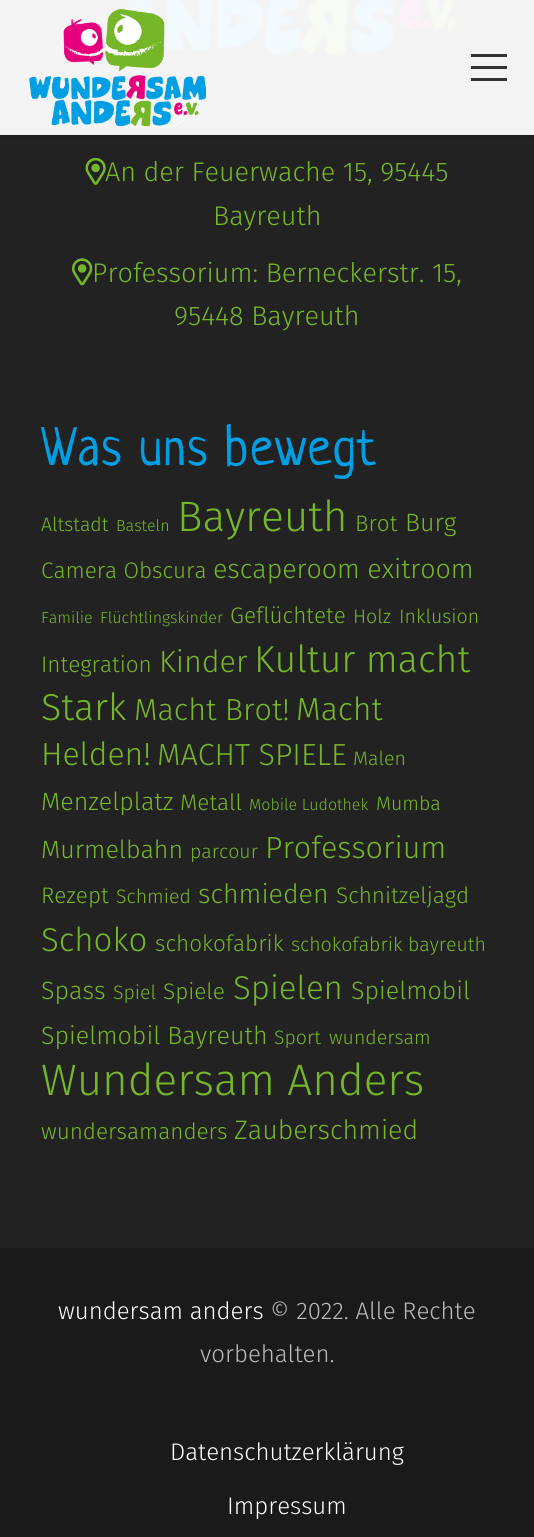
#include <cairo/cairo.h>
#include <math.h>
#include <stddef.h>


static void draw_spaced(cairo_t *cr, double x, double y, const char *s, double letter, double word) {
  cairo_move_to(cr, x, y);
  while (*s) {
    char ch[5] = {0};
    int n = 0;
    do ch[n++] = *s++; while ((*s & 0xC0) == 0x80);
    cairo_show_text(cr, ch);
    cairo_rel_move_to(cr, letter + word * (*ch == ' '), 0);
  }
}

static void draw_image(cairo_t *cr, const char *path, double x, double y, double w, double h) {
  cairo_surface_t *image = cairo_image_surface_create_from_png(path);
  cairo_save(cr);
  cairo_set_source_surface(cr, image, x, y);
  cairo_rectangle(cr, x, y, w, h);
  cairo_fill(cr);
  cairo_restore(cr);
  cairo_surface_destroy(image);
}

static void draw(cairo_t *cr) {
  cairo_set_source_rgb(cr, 34 / 255.0, 34 / 255.0, 34 / 255.0);
  cairo_paint(cr);
  cairo_set_source_rgb(cr, 31 / 255.0, 31 / 255.0, 31 / 255.0);
  cairo_rectangle(cr, 0, 135, 534, 2);
  cairo_fill(cr);
  cairo_set_source_rgb(cr, 244 / 255.0, 244 / 255.0, 244 / 255.0);
  cairo_rectangle(cr, 0, 0, 534, 135);
  cairo_fill(cr);
  draw_image(cr, "images/2.png", 125, 0, 333, 56);
  draw_image(cr, "images/3.png", 164, 100, 27, 28);
  draw_image(cr, "images/1.png", 29, 8, 177, 119);
  cairo_set_source_rgb(cr, 51 / 255.0, 51 / 255.0, 51 / 255.0);
  cairo_rectangle(cr, 471, 66, 36, 3);
  cairo_fill(cr);
  cairo_rectangle(cr, 471, 54, 36, 3);
  cairo_fill(cr);
  cairo_rectangle(cr, 471, 78, 36, 3);
  cairo_fill(cr);
  draw_image(cr, "images/4.png", 85, 157, 21, 28);
  draw_image(cr, "images/5.png", 72, 258, 21, 28);
  cairo_set_source_rgb(cr, 26 / 255.0, 26 / 255.0, 26 / 255.0);
  cairo_rectangle(cr, 0, 1248, 534, 289);
  cairo_fill(cr);
  cairo_select_font_face(cr, "Fira Sans Light", CAIRO_FONT_SLANT_NORMAL, CAIRO_FONT_WEIGHT_NORMAL);
  cairo_set_font_size(cr, 27);
  cairo_set_source_rgb(cr, 118 / 255.0, 183 / 255.0, 41 / 255.0);
  cairo_move_to(cr, 105, 181);
  cairo_show_text(cr, "An der Feuerwache 15, 95445");
  cairo_move_to(cr, 213, 225);
  cairo_show_text(cr, "Bayreuth");
  cairo_move_to(cr, 92, 282);
  cairo_show_text(cr, "Professorium: Berneckerstr. 15,");
  cairo_move_to(cr, 174, 325);
  cairo_show_text(cr, "95448 Bayreuth");
  cairo_select_font_face(cr, "Neucha", CAIRO_FONT_SLANT_NORMAL, CAIRO_FONT_WEIGHT_NORMAL);
  cairo_set_font_size(cr, 54);
  cairo_set_source_rgb(cr, 0, 159 / 255.0, 227 / 255.0);
  draw_spaced(cr, 41, 465, "Was uns bewegt", 1.1, 0);
  cairo_select_font_face(cr, "Fira Sans Light", CAIRO_FONT_SLANT_NORMAL, CAIRO_FONT_WEIGHT_NORMAL);
  cairo_set_font_size(cr, 19.5);
  cairo_set_source_rgb(cr, 118 / 255.0, 183 / 255.0, 41 / 255.0);
  cairo_move_to(cr, 41, 531);
  cairo_show_text(cr, "Altstadt");
  cairo_set_font_size(cr, 16);
  cairo_move_to(cr, 116, 531);
  cairo_show_text(cr, "Basteln");
  cairo_set_font_size(cr, 42.5);
  cairo_move_to(cr, 177, 531);
  cairo_show_text(cr, "Bayreuth");
  cairo_set_font_size(cr, 22.5);
  cairo_move_to(cr, 355, 531);
  cairo_show_text(cr, "Brot");
  cairo_set_font_size(cr, 25);
  cairo_move_to(cr, 405, 531);
  cairo_show_text(cr, "Burg");
  cairo_set_font_size(cr, 22.5);
  cairo_move_to(cr, 41, 578);
  cairo_show_text(cr, "Camera Obscura");
  cairo_set_font_size(cr, 26.75);
  cairo_move_to(cr, 213, 578);
  cairo_show_text(cr, "escaperoom exitroom");
  cairo_set_font_size(cr, 16);
  cairo_move_to(cr, 41, 623);
  cairo_show_text(cr, "Familie");
  cairo_move_to(cr, 100, 623);
  cairo_show_text(cr, "Flüchtlingskinder");
  cairo_set_font_size(cr, 22.5);
  cairo_move_to(cr, 230, 623);
  cairo_show_text(cr, "Geflüchtete");
  cairo_set_font_size(cr, 19.5);
  cairo_move_to(cr, 353, 623);
  cairo_show_text(cr, "Holz");
  cairo_move_to(cr, 399, 623);
  cairo_show_text(cr, "Inklusion");
  cairo_set_font_size(cr, 22.5);
  cairo_move_to(cr, 41, 672);
  cairo_show_text(cr, "Integration");
  cairo_set_font_size(cr, 30.5);
  cairo_move_to(cr, 159, 672);
  cairo_show_text(cr, "Kinder");
  cairo_set_font_size(cr, 37.5);
  cairo_move_to(cr, 254, 672);
  cairo_show_text(cr, "Kultur macht");
  cairo_move_to(cr, 41, 720);
  cairo_show_text(cr, "Stark");
  cairo_set_font_size(cr, 30.5);
  cairo_move_to(cr, 134, 720);
  cairo_show_text(cr, "Macht Brot!");
  cairo_set_font_size(cr, 32);
  cairo_move_to(cr, 296, 720);
  cairo_show_text(cr, "Macht");
  cairo_move_to(cr, 41, 765);
  cairo_show_text(cr, "Helden!");
  cairo_set_font_size(cr, 30.5);
  cairo_move_to(cr, 157, 765);
  cairo_show_text(cr, "MACHT SPIELE");
  cairo_set_font_size(cr, 19.5);
  cairo_move_to(cr, 353, 765);
  cairo_show_text(cr, "Malen");
  cairo_set_font_size(cr, 25);
  cairo_move_to(cr, 41, 810);
  cairo_show_text(cr, "Menzelplatz");
  cairo_set_font_size(cr, 22.5);
  cairo_move_to(cr, 180, 810);
  cairo_show_text(cr, "Metall");
  cairo_set_font_size(cr, 16);
  cairo_move_to(cr, 249, 810);
  cairo_show_text(cr, "Mobile Ludothek");
  cairo_set_font_size(cr, 19.5);
  cairo_move_to(cr, 376, 810);
  cairo_show_text(cr, "Mumba");
  cairo_set_font_size(cr, 25);
  cairo_move_to(cr, 41, 858);
  cairo_show_text(cr, "Murmelbahn");
  cairo_set_font_size(cr, 19.5);
  cairo_move_to(cr, 190, 858);
  cairo_show_text(cr, "parcour");
  cairo_set_font_size(cr, 30.5);
  cairo_move_to(cr, 265, 858);
  cairo_show_text(cr, "Professorium");
  cairo_set_font_size(cr, 22.5);
  cairo_move_to(cr, 41, 903);
  cairo_show_text(cr, "Rezept");
  cairo_set_font_size(cr, 19.5);
  cairo_move_to(cr, 116, 903);
  cairo_show_text(cr, "Schmied");
  cairo_set_font_size(cr, 26.75);
  cairo_move_to(cr, 198, 903);
  cairo_show_text(cr, "schmieden");
  cairo_set_font_size(cr, 22.5);
  cairo_move_to(cr, 336, 903);
  cairo_show_text(cr, "Schnitzeljagd");
  cairo_set_font_size(cr, 33);
  cairo_move_to(cr, 41, 951);
  cairo_show_text(cr, "Schoko");
  cairo_set_font_size(cr, 22.5);
  cairo_move_to(cr, 155, 951);
  cairo_show_text(cr, "schokofabrik");
  cairo_set_font_size(cr, 19.5);
  cairo_move_to(cr, 291, 951);
  cairo_show_text(cr, "schokofabrik bayreuth");
  cairo_set_font_size(cr, 25);
  cairo_move_to(cr, 41, 999);
  cairo_show_text(cr, "Spass");
  cairo_set_font_size(cr, 19.5);
  cairo_move_to(cr, 113, 999);
  cairo_show_text(cr, "Spiel");
  cairo_set_font_size(cr, 22.5);
  cairo_move_to(cr, 163, 999);
  cairo_show_text(cr, "Spiele");
  cairo_set_font_size(cr, 33);
  cairo_move_to(cr, 233, 999);
  cairo_show_text(cr, "Spielen");
  cairo_set_font_size(cr, 25);
  cairo_move_to(cr, 351, 999);
  cairo_show_text(cr, "Spielmobil");
  cairo_move_to(cr, 41, 1044);
  cairo_show_text(cr, "Spielmobil Bayreuth");
  cairo_set_font_size(cr, 19.5);
  cairo_move_to(cr, 274, 1044);
  cairo_show_text(cr, "Sport");
  cairo_move_to(cr, 329, 1044);
  cairo_show_text(cr, "wundersam");
  cairo_set_font_size(cr, 44);
  cairo_move_to(cr, 41, 1095);
  cairo_show_text(cr, "Wundersam Anders");
  cairo_set_font_size(cr, 22.5);
  cairo_move_to(cr, 41, 1139);
  cairo_show_text(cr, "wundersamanders");
  cairo_set_font_size(cr, 26.75);
  cairo_move_to(cr, 234, 1139);
  cairo_show_text(cr, "Zauberschmied");
  cairo_set_font_size(cr, 24);
  cairo_set_source_rgb(cr, 1, 1, 1);
  cairo_move_to(cr, 58, 1319);
  cairo_show_text(cr, "wundersam anders");
  cairo_set_source_rgb(cr, 187 / 255.0, 187 / 255.0, 187 / 255.0);
  cairo_move_to(cr, 270, 1319);
  cairo_show_text(cr, "© 2022. Alle Rechte");
  cairo_move_to(cr, 200, 1362);
  cairo_show_text(cr, "vorbehalten.");
  cairo_set_source_rgb(cr, 1, 1, 1);
  cairo_move_to(cr, 170, 1460);
  cairo_show_text(cr, "Datenschutzerklärung");
  cairo_move_to(cr, 227, 1514);
  cairo_show_text(cr, "Impressum");
}

int main(void) {
  cairo_surface_t *surface = cairo_image_surface_create(CAIRO_FORMAT_RGB24, 534, 1537);
  cairo_t *cr = cairo_create(surface);
  cairo_font_options_t *options = cairo_font_options_create();
  cairo_font_options_set_hint_metrics(options, CAIRO_HINT_METRICS_OFF);
  cairo_font_options_set_hint_style(options, CAIRO_HINT_STYLE_NONE);
  cairo_set_font_options(cr, options);
  cairo_set_miter_limit(cr, 4);
  draw(cr);
  cairo_surface_write_to_png(surface, "out.png");
  cairo_font_options_destroy(options);
  cairo_destroy(cr);
  cairo_surface_destroy(surface);
  return 0;
}
